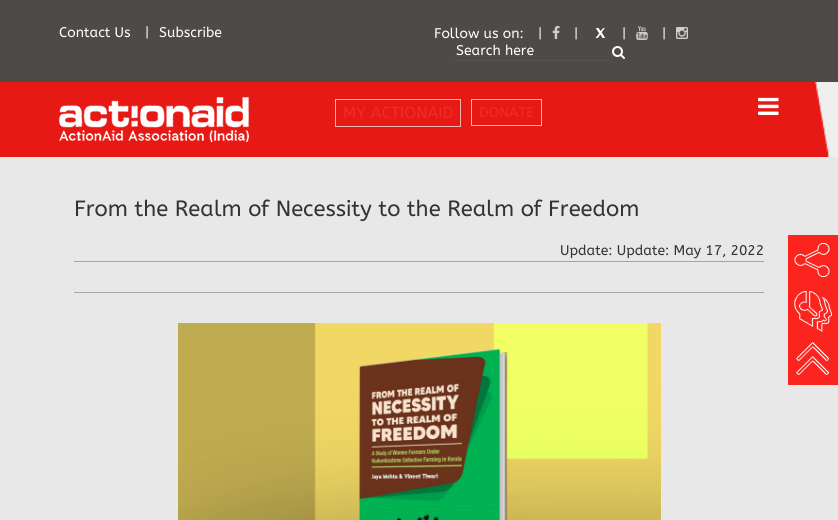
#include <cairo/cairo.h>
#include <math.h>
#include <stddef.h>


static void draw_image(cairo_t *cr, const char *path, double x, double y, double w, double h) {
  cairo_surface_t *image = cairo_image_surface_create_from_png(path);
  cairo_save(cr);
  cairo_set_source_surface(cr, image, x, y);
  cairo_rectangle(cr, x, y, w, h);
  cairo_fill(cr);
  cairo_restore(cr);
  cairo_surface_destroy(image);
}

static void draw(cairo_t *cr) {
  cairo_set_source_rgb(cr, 1, 1, 1);
  cairo_paint(cr);
  cairo_set_source_rgb(cr, 78 / 255.0, 74 / 255.0, 71 / 255.0);
  cairo_rectangle(cr, 0, 0, 838, 82);
  cairo_fill(cr);
  draw_image(cr, "images/1.png", 552, 26, 8, 13);
  draw_image(cr, "images/2.png", 595, 28, 11, 10);
  draw_image(cr, "images/3.png", 636, 26, 12, 14);
  draw_image(cr, "images/4.png", 676, 27, 12, 12);
  cairo_set_source_rgb(cr, 83 / 255.0, 83 / 255.0, 83 / 255.0);
  cairo_rectangle(cr, 454, 60, 154, 1);
  cairo_fill(cr);
  draw_image(cr, "images/5.png", 612, 46, 13, 13);
  draw_image(cr, "images/6.png", 0, 82, 838, 75);
  draw_image(cr, "images/7.png", 59, 97, 190, 45);
  cairo_rectangle(cr, 335.5, 99.5, 125, 27);
  cairo_set_source_rgb(cr, 240 / 255.0, 182 / 255.0, 178 / 255.0);
  cairo_set_line_width(cr, 1);
  cairo_stroke(cr);
  cairo_rectangle(cr, 471.5, 99.5, 70, 26);
  cairo_stroke(cr);
  draw_image(cr, "images/8.png", 758, 97, 21, 18);
  cairo_set_source_rgb(cr, 232 / 255.0, 232 / 255.0, 232 / 255.0);
  cairo_rectangle(cr, 0, 157, 838, 363);
  cairo_fill(cr);
  cairo_set_source_rgb(cr, 165 / 255.0, 165 / 255.0, 165 / 255.0);
  cairo_rectangle(cr, 74, 261, 690, 1);
  cairo_fill(cr);
  cairo_rectangle(cr, 74, 292, 690, 1);
  cairo_fill(cr);
  draw_image(cr, "images/9.png", 178, 323, 483, 197);
  cairo_set_source_rgb(cr, 251 / 255.0, 36 / 255.0, 31 / 255.0);
  cairo_rectangle(cr, 788, 235, 50, 150);
  cairo_fill(cr);
  draw_image(cr, "images/10.png", 794, 243, 36, 34);
  draw_image(cr, "images/11.png", 794, 291, 38, 41);
  draw_image(cr, "images/12.png", 796, 342, 33, 33);
  cairo_select_font_face(cr, "ABeeZee", CAIRO_FONT_SLANT_NORMAL, CAIRO_FONT_WEIGHT_NORMAL);
  cairo_set_font_size(cr, 14);
  cairo_set_source_rgb(cr, 1, 1, 1);
  cairo_move_to(cr, 59, 37);
  cairo_show_text(cr, "Contact Us");
  cairo_move_to(cr, 145, 37);
  cairo_show_text(cr, "|");
  cairo_move_to(cr, 159, 37);
  cairo_show_text(cr, "Subscribe");
  cairo_move_to(cr, 434, 38);
  cairo_show_text(cr, "Follow us on:");
  cairo_move_to(cr, 538, 38);
  cairo_show_text(cr, "|");
  cairo_move_to(cr, 574, 38);
  cairo_show_text(cr, "|");
  cairo_move_to(cr, 622, 38);
  cairo_show_text(cr, "|");
  cairo_move_to(cr, 662, 38);
  cairo_show_text(cr, "|");
  cairo_move_to(cr, 456, 55);
  cairo_show_text(cr, "Search here");
  cairo_set_font_size(cr, 16);
  cairo_set_source_rgb(cr, 239 / 255.0, 45 / 255.0, 35 / 255.0);
  cairo_move_to(cr, 343, 118);
  cairo_show_text(cr, "MY ACTIONAID");
  cairo_set_font_size(cr, 14);
  cairo_move_to(cr, 479, 117);
  cairo_show_text(cr, "DONATE");
  cairo_set_font_size(cr, 22);
  cairo_set_source_rgb(cr, 51 / 255.0, 51 / 255.0, 51 / 255.0);
  cairo_move_to(cr, 74, 216);
  cairo_show_text(cr, "From the Realm of Necessity to the Realm of Freedom");
  cairo_set_font_size(cr, 14);
  cairo_move_to(cr, 560, 255);
  cairo_show_text(cr, "Update: Update: May 17, 2022");
}

int main(void) {
  cairo_surface_t *surface = cairo_image_surface_create(CAIRO_FORMAT_RGB24, 838, 520);
  cairo_t *cr = cairo_create(surface);
  cairo_font_options_t *options = cairo_font_options_create();
  cairo_font_options_set_hint_metrics(options, CAIRO_HINT_METRICS_OFF);
  cairo_font_options_set_hint_style(options, CAIRO_HINT_STYLE_NONE);
  cairo_set_font_options(cr, options);
  cairo_set_miter_limit(cr, 4);
  draw(cr);
  cairo_surface_write_to_png(surface, "out.png");
  cairo_font_options_destroy(options);
  cairo_destroy(cr);
  cairo_surface_destroy(surface);
  return 0;
}
